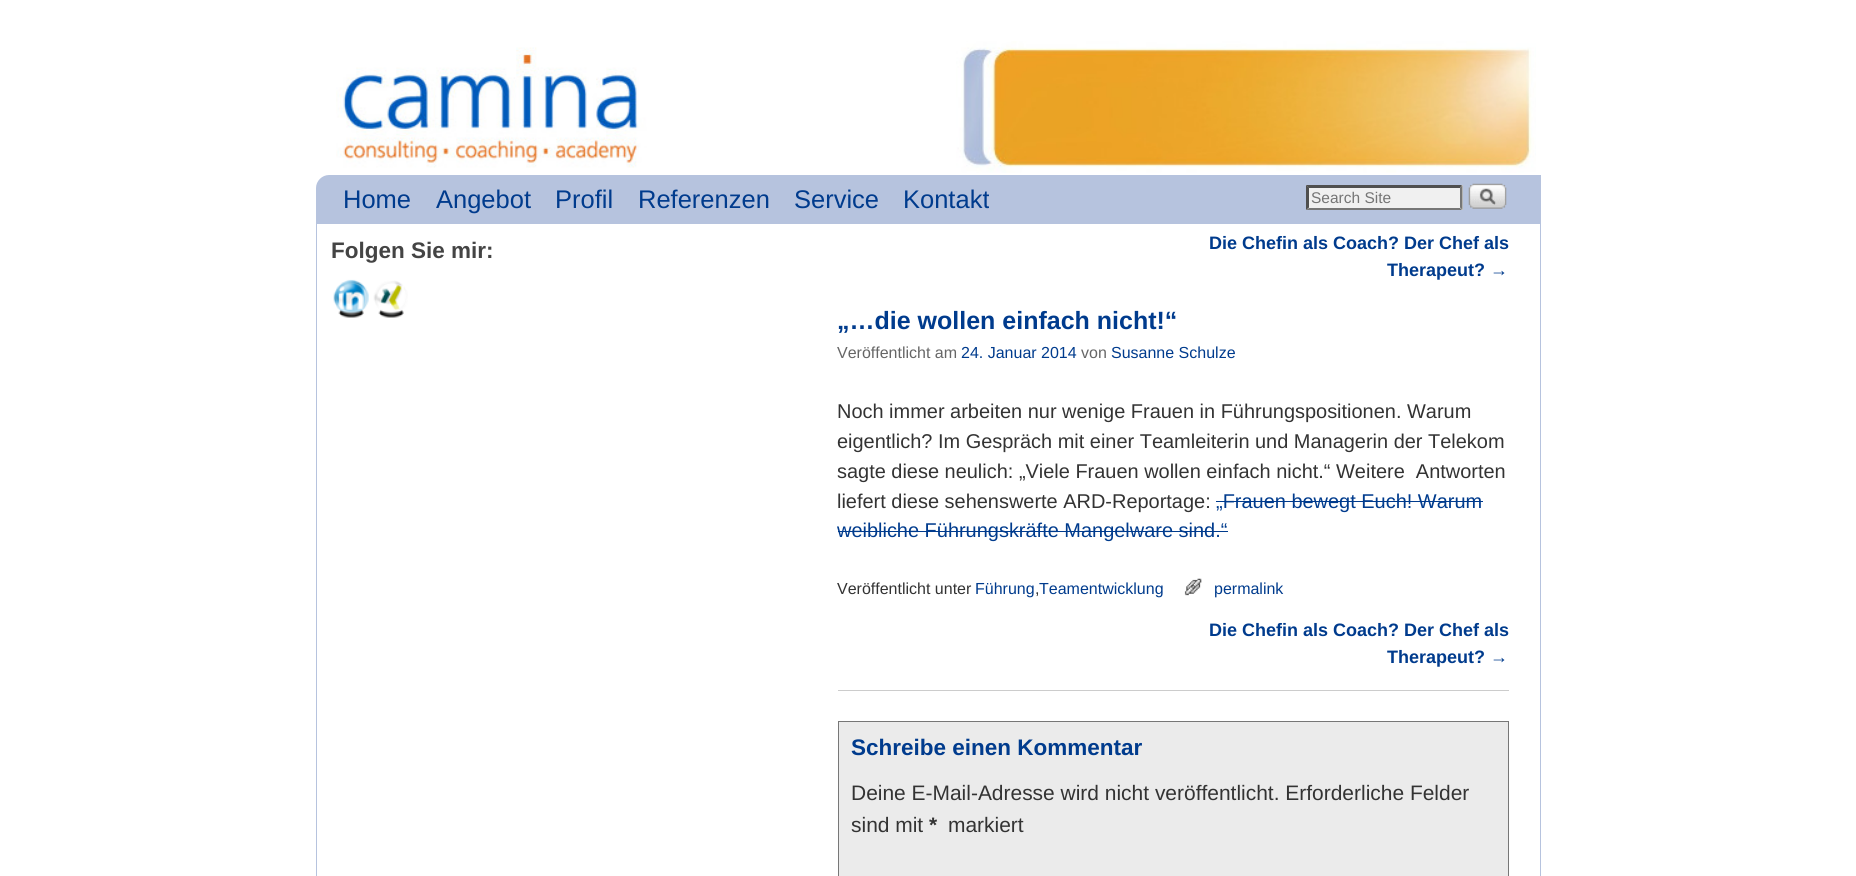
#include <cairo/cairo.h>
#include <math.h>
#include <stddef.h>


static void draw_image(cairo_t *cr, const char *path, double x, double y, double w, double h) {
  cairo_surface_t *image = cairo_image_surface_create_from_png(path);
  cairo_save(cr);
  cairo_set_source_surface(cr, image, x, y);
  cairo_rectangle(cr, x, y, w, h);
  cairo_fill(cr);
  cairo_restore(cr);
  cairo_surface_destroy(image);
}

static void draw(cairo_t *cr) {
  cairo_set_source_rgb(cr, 1, 1, 1);
  cairo_paint(cr);
  draw_image(cr, "images/1.png", 336, 41, 1200, 132);
  cairo_set_source_rgb(cr, 182 / 255.0, 195 / 255.0, 222 / 255.0);
  cairo_new_path(cr);
  cairo_move_to(cr, 329, 175);
  cairo_line_to(cr, 1541, 175);
  cairo_line_to(cr, 1541, 223);
  cairo_line_to(cr, 316, 223);
  cairo_line_to(cr, 316, 188);
  cairo_curve_to(cr, 316, 181, 322, 175, 329, 175);
  cairo_close_path(cr);
  cairo_fill(cr);
  cairo_set_source_rgb(cr, 240 / 255.0, 240 / 255.0, 240 / 255.0);
  cairo_rectangle(cr, 1306, 185, 157, 25);
  cairo_fill(cr);
  cairo_set_source_rgb(cr, 79 / 255.0, 79 / 255.0, 79 / 255.0);
  cairo_new_path(cr);
  cairo_move_to(cr, 1306, 185);
  cairo_line_to(cr, 1462, 185);
  cairo_line_to(cr, 1460, 188);
  cairo_line_to(cr, 1309, 188);
  cairo_close_path(cr);
  cairo_fill(cr);
  cairo_set_source_rgb(cr, 118 / 255.0, 118 / 255.0, 118 / 255.0);
  cairo_new_path(cr);
  cairo_move_to(cr, 1462.5, 185);
  cairo_line_to(cr, 1462.5, 210);
  cairo_line_to(cr, 1460, 207.5);
  cairo_line_to(cr, 1460, 187.5);
  cairo_close_path(cr);
  cairo_fill(cr);
  cairo_new_path(cr);
  cairo_move_to(cr, 1462, 210);
  cairo_line_to(cr, 1306, 210);
  cairo_line_to(cr, 1309, 208);
  cairo_line_to(cr, 1460, 208);
  cairo_close_path(cr);
  cairo_fill(cr);
  cairo_set_source_rgb(cr, 79 / 255.0, 79 / 255.0, 79 / 255.0);
  cairo_new_path(cr);
  cairo_move_to(cr, 1306, 210);
  cairo_line_to(cr, 1306, 185);
  cairo_line_to(cr, 1309, 187.5);
  cairo_line_to(cr, 1309, 207.5);
  cairo_close_path(cr);
  cairo_fill(cr);
  draw_image(cr, "images/2.png", 1468, 183, 39, 26);
  cairo_rectangle(cr, 316.5, 223.5, 1224, 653);
  cairo_set_source_rgb(cr, 182 / 255.0, 195 / 255.0, 222 / 255.0);
  cairo_set_line_width(cr, 1);
  cairo_stroke(cr);
  draw_image(cr, "images/3.png", 333, 279, 36, 39);
  draw_image(cr, "images/4.png", 373, 280, 35, 38);
  cairo_set_source_rgb(cr, 0, 59 / 255.0, 141 / 255.0);
  cairo_rectangle(cr, 1216, 501, 267, 1);
  cairo_fill(cr);
  cairo_rectangle(cr, 838, 531, 390, 1);
  cairo_fill(cr);
  draw_image(cr, "images/5.png", 1184, 578, 18, 18);
  cairo_set_source_rgb(cr, 204 / 255.0, 204 / 255.0, 204 / 255.0);
  cairo_rectangle(cr, 838, 690, 671, 1);
  cairo_fill(cr);
  cairo_set_source_rgb(cr, 235 / 255.0, 235 / 255.0, 235 / 255.0);
  cairo_rectangle(cr, 838.5, 721.5, 670, 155);
  cairo_fill_preserve(cr);
  cairo_set_source_rgb(cr, 119 / 255.0, 119 / 255.0, 119 / 255.0);
  cairo_stroke(cr);
  cairo_select_font_face(cr, "Liberation Sans", CAIRO_FONT_SLANT_NORMAL, CAIRO_FONT_WEIGHT_NORMAL);
  cairo_set_font_size(cr, 25.5);
  cairo_set_source_rgb(cr, 0, 59 / 255.0, 141 / 255.0);
  cairo_move_to(cr, 343, 208);
  cairo_show_text(cr, "Home");
  cairo_move_to(cr, 436, 208);
  cairo_show_text(cr, "Angebot");
  cairo_move_to(cr, 555, 208);
  cairo_show_text(cr, "Profil");
  cairo_move_to(cr, 638, 208);
  cairo_show_text(cr, "Referenzen");
  cairo_move_to(cr, 794, 208);
  cairo_show_text(cr, "Service");
  cairo_move_to(cr, 903, 208);
  cairo_show_text(cr, "Kontakt");
  cairo_set_font_size(cr, 15.5);
  cairo_set_source_rgb(cr, 117 / 255.0, 117 / 255.0, 117 / 255.0);
  cairo_move_to(cr, 1311, 203);
  cairo_show_text(cr, "Search Site");
  cairo_select_font_face(cr, "Liberation Sans", CAIRO_FONT_SLANT_NORMAL, CAIRO_FONT_WEIGHT_BOLD);
  cairo_set_font_size(cr, 22.5);
  cairo_set_source_rgb(cr, 68 / 255.0, 68 / 255.0, 68 / 255.0);
  cairo_move_to(cr, 331, 258);
  cairo_show_text(cr, "Folgen Sie mir:");
  cairo_set_font_size(cr, 18);
  cairo_set_source_rgb(cr, 0, 59 / 255.0, 141 / 255.0);
  cairo_move_to(cr, 1209, 249);
  cairo_show_text(cr, "Die Chefin als Coach? Der Chef als");
  cairo_move_to(cr, 1387, 276);
  cairo_show_text(cr, "Therapeut?");
  cairo_select_font_face(cr, "Liberation Sans", CAIRO_FONT_SLANT_NORMAL, CAIRO_FONT_WEIGHT_NORMAL);
  cairo_move_to(cr, 1490, 276);
  cairo_show_text(cr, "→");
  cairo_select_font_face(cr, "Liberation Sans", CAIRO_FONT_SLANT_NORMAL, CAIRO_FONT_WEIGHT_BOLD);
  cairo_set_font_size(cr, 25);
  cairo_move_to(cr, 837, 329);
  cairo_show_text(cr, "„…die wollen einfach nicht!“");
  cairo_select_font_face(cr, "Liberation Sans", CAIRO_FONT_SLANT_NORMAL, CAIRO_FONT_WEIGHT_NORMAL);
  cairo_set_font_size(cr, 16);
  cairo_set_source_rgb(cr, 102 / 255.0, 102 / 255.0, 102 / 255.0);
  cairo_move_to(cr, 837, 358);
  cairo_show_text(cr, "Veröffentlicht am");
  cairo_set_source_rgb(cr, 0, 59 / 255.0, 141 / 255.0);
  cairo_move_to(cr, 961, 358);
  cairo_show_text(cr, "24. Januar 2014");
  cairo_set_source_rgb(cr, 102 / 255.0, 102 / 255.0, 102 / 255.0);
  cairo_move_to(cr, 1081, 358);
  cairo_show_text(cr, "von");
  cairo_set_source_rgb(cr, 0, 59 / 255.0, 141 / 255.0);
  cairo_move_to(cr, 1111, 358);
  cairo_show_text(cr, "Susanne Schulze");
  cairo_set_font_size(cr, 19.95);
  cairo_set_source_rgb(cr, 51 / 255.0, 51 / 255.0, 51 / 255.0);
  cairo_move_to(cr, 837, 418);
  cairo_show_text(cr, "Noch immer arbeiten nur wenige Frauen in Führungspositionen. Warum");
  cairo_move_to(cr, 837, 448);
  cairo_show_text(cr, "eigentlich? Im Gespräch mit einer Teamleiterin und Managerin der Telekom");
  cairo_move_to(cr, 837, 478);
  cairo_show_text(cr, "sagte diese neulich: „Viele Frauen wollen einfach nicht.“ Weitere  Antworten");
  cairo_move_to(cr, 837, 508);
  cairo_show_text(cr, "liefert diese sehenswerte ARD-Reportage:");
  cairo_set_source_rgb(cr, 0, 59 / 255.0, 141 / 255.0);
  cairo_move_to(cr, 1216, 508);
  cairo_show_text(cr, "„Frauen bewegt Euch! Warum");
  cairo_move_to(cr, 837, 537);
  cairo_show_text(cr, "weibliche Führungskräfte Mangelware sind.“");
  cairo_set_font_size(cr, 16);
  cairo_set_source_rgb(cr, 51 / 255.0, 51 / 255.0, 51 / 255.0);
  cairo_move_to(cr, 837, 594);
  cairo_show_text(cr, "Veröffentlicht unter");
  cairo_set_source_rgb(cr, 0, 59 / 255.0, 141 / 255.0);
  cairo_move_to(cr, 975, 594);
  cairo_show_text(cr, "Führung Teamentwicklung");
  cairo_move_to(cr, 1214, 594);
  cairo_show_text(cr, "permalink");
  cairo_set_source_rgb(cr, 51 / 255.0, 51 / 255.0, 51 / 255.0);
  cairo_move_to(cr, 1035, 594);
  cairo_show_text(cr, ",");
  cairo_select_font_face(cr, "Liberation Sans", CAIRO_FONT_SLANT_NORMAL, CAIRO_FONT_WEIGHT_BOLD);
  cairo_set_font_size(cr, 18);
  cairo_set_source_rgb(cr, 0, 59 / 255.0, 141 / 255.0);
  cairo_move_to(cr, 1209, 636);
  cairo_show_text(cr, "Die Chefin als Coach? Der Chef als");
  cairo_move_to(cr, 1387, 663);
  cairo_show_text(cr, "Therapeut?");
  cairo_select_font_face(cr, "Liberation Sans", CAIRO_FONT_SLANT_NORMAL, CAIRO_FONT_WEIGHT_NORMAL);
  cairo_move_to(cr, 1490, 663);
  cairo_show_text(cr, "→");
  cairo_select_font_face(cr, "Liberation Sans", CAIRO_FONT_SLANT_NORMAL, CAIRO_FONT_WEIGHT_BOLD);
  cairo_set_font_size(cr, 22.5);
  cairo_move_to(cr, 851, 755);
  cairo_show_text(cr, "Schreibe einen Kommentar");
  cairo_select_font_face(cr, "Liberation Sans", CAIRO_FONT_SLANT_NORMAL, CAIRO_FONT_WEIGHT_NORMAL);
  cairo_set_font_size(cr, 20.95);
  cairo_set_source_rgb(cr, 51 / 255.0, 51 / 255.0, 51 / 255.0);
  cairo_move_to(cr, 851, 800);
  cairo_show_text(cr, "Deine E-Mail-Adresse wird nicht veröffentlicht. Erforderliche Felder");
  cairo_move_to(cr, 851, 832);
  cairo_show_text(cr, "sind mit");
  cairo_select_font_face(cr, "Liberation Sans", CAIRO_FONT_SLANT_NORMAL, CAIRO_FONT_WEIGHT_BOLD);
  cairo_move_to(cr, 929, 832);
  cairo_show_text(cr, "*");
  cairo_select_font_face(cr, "Liberation Sans", CAIRO_FONT_SLANT_NORMAL, CAIRO_FONT_WEIGHT_NORMAL);
  cairo_move_to(cr, 948, 832);
  cairo_show_text(cr, "markiert");
}

int main(void) {
  cairo_surface_t *surface = cairo_image_surface_create(CAIRO_FORMAT_RGB24, 1856, 876);
  cairo_t *cr = cairo_create(surface);
  cairo_font_options_t *options = cairo_font_options_create();
  cairo_font_options_set_hint_metrics(options, CAIRO_HINT_METRICS_OFF);
  cairo_font_options_set_hint_style(options, CAIRO_HINT_STYLE_NONE);
  cairo_set_font_options(cr, options);
  cairo_set_miter_limit(cr, 4);
  draw(cr);
  cairo_surface_write_to_png(surface, "out.png");
  cairo_font_options_destroy(options);
  cairo_destroy(cr);
  cairo_surface_destroy(surface);
  return 0;
}
